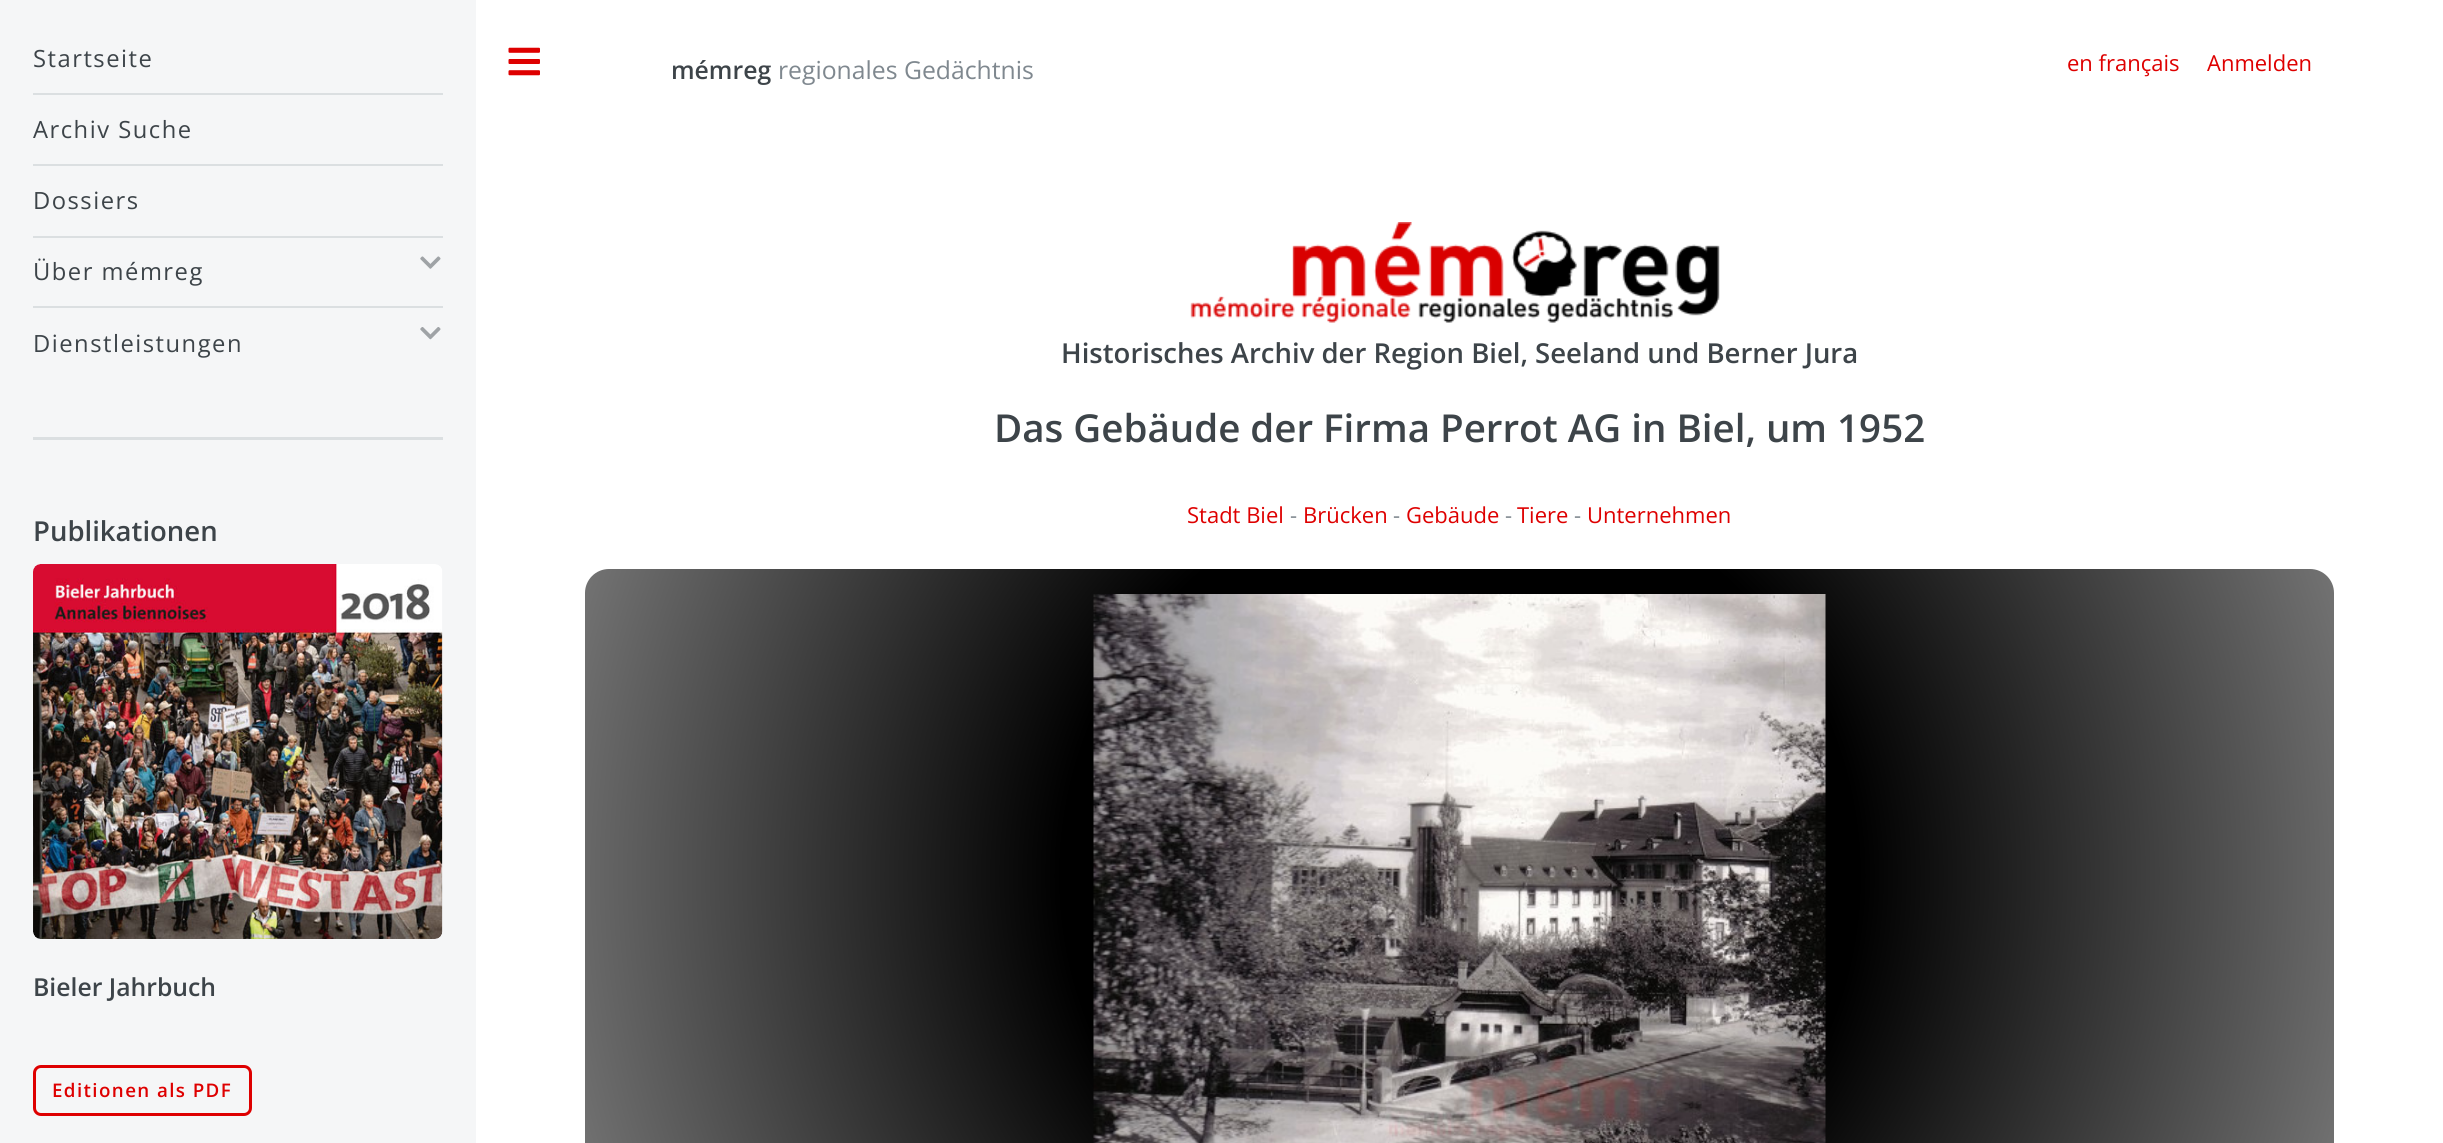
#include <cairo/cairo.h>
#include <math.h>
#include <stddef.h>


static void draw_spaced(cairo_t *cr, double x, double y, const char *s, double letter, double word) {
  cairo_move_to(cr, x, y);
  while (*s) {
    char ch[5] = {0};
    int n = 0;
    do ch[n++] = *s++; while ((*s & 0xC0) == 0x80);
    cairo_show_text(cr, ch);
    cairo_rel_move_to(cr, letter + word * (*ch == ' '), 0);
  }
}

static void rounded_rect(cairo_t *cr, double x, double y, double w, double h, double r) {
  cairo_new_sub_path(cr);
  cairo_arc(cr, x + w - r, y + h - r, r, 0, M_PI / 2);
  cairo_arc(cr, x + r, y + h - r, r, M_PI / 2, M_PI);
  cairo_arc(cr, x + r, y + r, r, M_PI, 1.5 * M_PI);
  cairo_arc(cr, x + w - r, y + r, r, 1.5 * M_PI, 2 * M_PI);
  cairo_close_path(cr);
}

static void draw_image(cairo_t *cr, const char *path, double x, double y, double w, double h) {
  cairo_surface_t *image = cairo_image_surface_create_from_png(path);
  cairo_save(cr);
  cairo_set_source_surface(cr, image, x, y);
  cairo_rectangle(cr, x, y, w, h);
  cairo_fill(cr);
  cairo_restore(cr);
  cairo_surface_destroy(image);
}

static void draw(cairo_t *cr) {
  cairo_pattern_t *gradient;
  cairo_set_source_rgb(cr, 1, 1, 1);
  cairo_paint(cr);
  cairo_set_source_rgb(cr, 245 / 255.0, 246 / 255.0, 247 / 255.0);
  cairo_rectangle(cr, 0, 0, 476, 1143);
  cairo_fill(cr);
  cairo_set_source_rgb(cr, 219 / 255.0, 223 / 255.0, 225 / 255.0);
  cairo_rectangle(cr, 33, 437, 410, 3);
  cairo_fill(cr);
  cairo_rectangle(cr, 33, 93, 410, 2);
  cairo_fill(cr);
  cairo_rectangle(cr, 33, 164, 410, 2);
  cairo_fill(cr);
  cairo_rectangle(cr, 33, 236, 410, 2);
  cairo_fill(cr);
  draw_image(cr, "images/1.png", 420, 256, 21, 13);
  cairo_rectangle(cr, 33, 306, 410, 2);
  cairo_fill(cr);
  draw_image(cr, "images/2.png", 420, 327, 21, 13);
  draw_image(cr, "images/3.png", 33, 564, 410, 375);
  rounded_rect(cr, 34.5, 1066.5, 216, 48, 6.5);
  cairo_set_source_rgb(cr, 222 / 255.0, 0, 0);
  cairo_set_line_width(cr, 3);
  cairo_stroke(cr);
  draw_image(cr, "images/4.png", 508, 47, 32, 29);
  draw_image(cr, "images/5.png", 1190, 222, 530, 101);
  gradient = cairo_pattern_create_radial(1460, 876, 0, 1460, 876, 927);
  cairo_pattern_add_color_stop_rgba(gradient, 0.43, 0, 0, 0, 1);
  cairo_pattern_add_color_stop_rgba(gradient, 1, 115 / 255.0, 115 / 255.0, 115 / 255.0, 1);
  cairo_set_source(cr, gradient);
  cairo_pattern_destroy(gradient);
  rounded_rect(cr, 585, 569, 1749, 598, 24);
  cairo_fill(cr);
  draw_image(cr, "images/6.png", 1093, 594, 733, 549);
  cairo_select_font_face(cr, "Open Sans", CAIRO_FONT_SLANT_NORMAL, CAIRO_FONT_WEIGHT_NORMAL);
  cairo_set_font_size(cr, 23.75);
  cairo_set_source_rgb(cr, 61 / 255.0, 68 / 255.0, 73 / 255.0);
  draw_spaced(cr, 33, 67, "Startseite", 1.5, 0);
  draw_spaced(cr, 33, 138, "Archiv Suche", 1.5, 0);
  draw_spaced(cr, 33, 209, "Dossiers", 1.5, 0);
  draw_spaced(cr, 33, 280, "Über mémreg", 1.5, 0);
  draw_spaced(cr, 33, 352, "Dienstleistungen", 1.5, 0);
  cairo_select_font_face(cr, "Open Sans SemiBold", CAIRO_FONT_SLANT_NORMAL, CAIRO_FONT_WEIGHT_NORMAL);
  cairo_set_font_size(cr, 27.5);
  cairo_move_to(cr, 33, 541);
  cairo_show_text(cr, "Publikationen");
  cairo_set_font_size(cr, 24.75);
  cairo_move_to(cr, 33, 996);
  cairo_show_text(cr, "Bieler Jahrbuch");
  cairo_set_font_size(cr, 18.75);
  cairo_set_source_rgb(cr, 222 / 255.0, 0, 0);
  draw_spaced(cr, 52, 1097, "Editionen als PDF", 1.4, 0);
  cairo_set_font_size(cr, 24.75);
  cairo_set_source_rgb(cr, 61 / 255.0, 68 / 255.0, 73 / 255.0);
  cairo_move_to(cr, 671, 79);
  cairo_show_text(cr, "mémreg");
  cairo_select_font_face(cr, "Open Sans", CAIRO_FONT_SLANT_NORMAL, CAIRO_FONT_WEIGHT_NORMAL);
  cairo_set_source_rgb(cr, 127 / 255.0, 136 / 255.0, 143 / 255.0);
  cairo_move_to(cr, 778, 79);
  cairo_show_text(cr, "regionales Gedächtnis");
  cairo_set_font_size(cr, 22);
  cairo_set_source_rgb(cr, 222 / 255.0, 0, 0);
  cairo_move_to(cr, 2067, 71);
  cairo_show_text(cr, "en français");
  cairo_move_to(cr, 2207, 71);
  cairo_show_text(cr, "Anmelden");
  cairo_select_font_face(cr, "Open Sans SemiBold", CAIRO_FONT_SLANT_NORMAL, CAIRO_FONT_WEIGHT_NORMAL);
  cairo_set_font_size(cr, 27.5);
  cairo_set_source_rgb(cr, 61 / 255.0, 68 / 255.0, 73 / 255.0);
  cairo_move_to(cr, 1061, 363);
  cairo_show_text(cr, "Historisches Archiv der Region Biel, Seeland und Berner Jura");
  cairo_set_font_size(cr, 38.5);
  cairo_move_to(cr, 994, 442);
  cairo_show_text(cr, "Das Gebäude der Firma Perrot AG in Biel, um 1952");
  cairo_select_font_face(cr, "Open Sans", CAIRO_FONT_SLANT_NORMAL, CAIRO_FONT_WEIGHT_NORMAL);
  cairo_set_font_size(cr, 22);
  cairo_set_source_rgb(cr, 222 / 255.0, 0, 0);
  cairo_move_to(cr, 1187, 523);
  cairo_show_text(cr, "Stadt Biel");
  cairo_set_source_rgb(cr, 127 / 255.0, 136 / 255.0, 143 / 255.0);
  cairo_move_to(cr, 1290, 523);
  cairo_show_text(cr, "-");
  cairo_set_source_rgb(cr, 222 / 255.0, 0, 0);
  cairo_move_to(cr, 1303, 523);
  cairo_show_text(cr, "Brücken");
  cairo_set_source_rgb(cr, 127 / 255.0, 136 / 255.0, 143 / 255.0);
  cairo_move_to(cr, 1393, 523);
  cairo_show_text(cr, "-");
  cairo_set_source_rgb(cr, 222 / 255.0, 0, 0);
  cairo_move_to(cr, 1406, 523);
  cairo_show_text(cr, "Gebäude");
  cairo_set_source_rgb(cr, 127 / 255.0, 136 / 255.0, 143 / 255.0);
  cairo_move_to(cr, 1505, 523);
  cairo_show_text(cr, "-");
  cairo_set_source_rgb(cr, 222 / 255.0, 0, 0);
  cairo_move_to(cr, 1517, 523);
  cairo_show_text(cr, "Tiere");
  cairo_set_source_rgb(cr, 127 / 255.0, 136 / 255.0, 143 / 255.0);
  cairo_move_to(cr, 1574, 523);
  cairo_show_text(cr, "-");
  cairo_set_source_rgb(cr, 222 / 255.0, 0, 0);
  cairo_move_to(cr, 1587, 523);
  cairo_show_text(cr, "Unternehmen");
}

int main(void) {
  cairo_surface_t *surface = cairo_image_surface_create(CAIRO_FORMAT_RGB24, 2443, 1143);
  cairo_t *cr = cairo_create(surface);
  cairo_font_options_t *options = cairo_font_options_create();
  cairo_font_options_set_hint_metrics(options, CAIRO_HINT_METRICS_OFF);
  cairo_font_options_set_hint_style(options, CAIRO_HINT_STYLE_NONE);
  cairo_set_font_options(cr, options);
  cairo_set_miter_limit(cr, 4);
  draw(cr);
  cairo_surface_write_to_png(surface, "out.png");
  cairo_font_options_destroy(options);
  cairo_destroy(cr);
  cairo_surface_destroy(surface);
  return 0;
}
